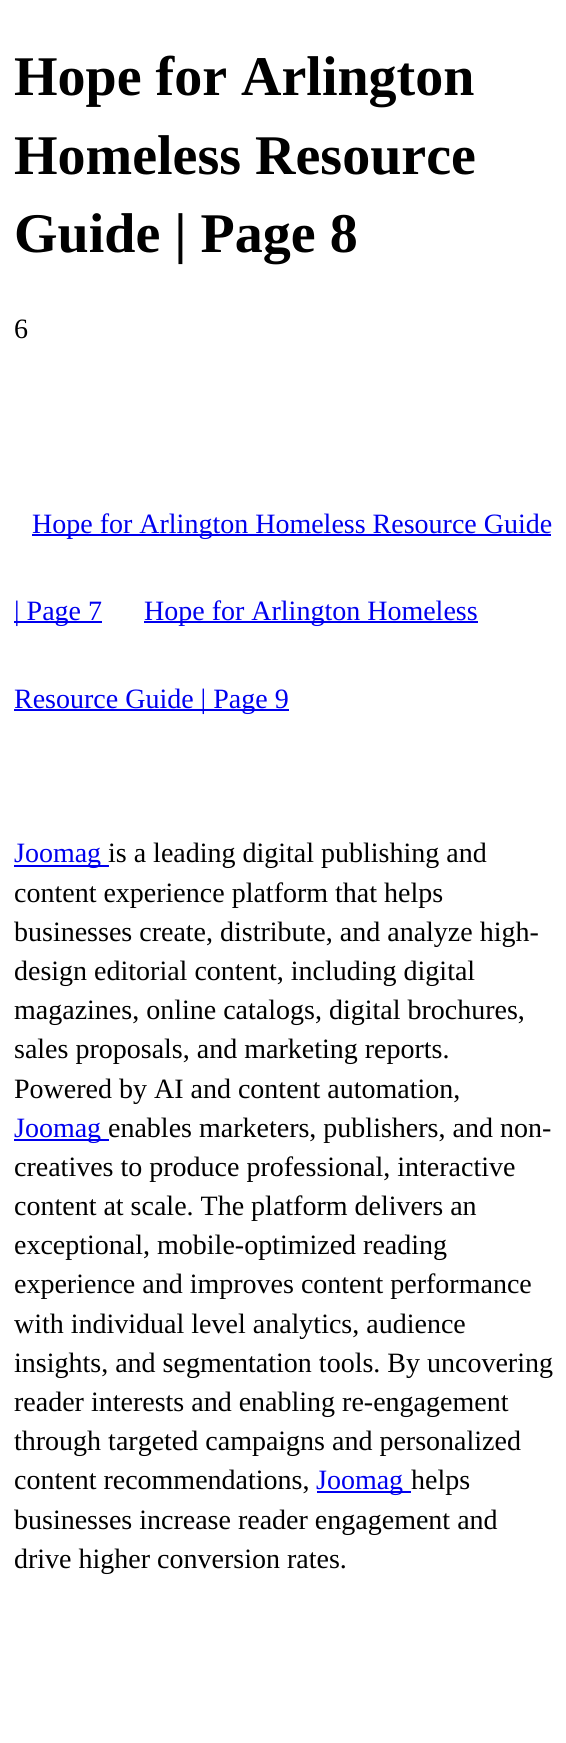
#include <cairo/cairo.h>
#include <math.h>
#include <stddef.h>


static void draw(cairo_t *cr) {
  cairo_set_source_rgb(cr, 1, 1, 1);
  cairo_paint(cr);
  cairo_set_source_rgb(cr, 0, 0, 238 / 255.0);
  cairo_rectangle(cr, 32, 534, 519, 2);
  cairo_fill(cr);
  cairo_rectangle(cr, 14, 621, 88, 2);
  cairo_fill(cr);
  cairo_rectangle(cr, 144, 621, 334, 2);
  cairo_fill(cr);
  cairo_rectangle(cr, 14, 709, 275, 2);
  cairo_fill(cr);
  cairo_rectangle(cr, 14, 865, 95, 2);
  cairo_fill(cr);
  cairo_rectangle(cr, 14, 1139, 95, 2);
  cairo_fill(cr);
  cairo_rectangle(cr, 317, 1491, 94, 2);
  cairo_fill(cr);
  cairo_select_font_face(cr, "Liberation Serif", CAIRO_FONT_SLANT_NORMAL, CAIRO_FONT_WEIGHT_BOLD);
  cairo_set_font_size(cr, 56);
  cairo_set_source_rgb(cr, 0, 0, 0);
  cairo_move_to(cr, 14, 95);
  cairo_show_text(cr, "Hope for Arlington");
  cairo_move_to(cr, 14, 174);
  cairo_show_text(cr, "Homeless Resource");
  cairo_move_to(cr, 14, 252);
  cairo_show_text(cr, "Guide | Page 8");
  cairo_select_font_face(cr, "Liberation Serif", CAIRO_FONT_SLANT_NORMAL, CAIRO_FONT_WEIGHT_NORMAL);
  cairo_set_font_size(cr, 28);
  cairo_move_to(cr, 14, 338);
  cairo_show_text(cr, "6");
  cairo_set_source_rgb(cr, 0, 0, 238 / 255.0);
  cairo_move_to(cr, 32, 533);
  cairo_show_text(cr, "Hope for Arlington Homeless Resource Guide");
  cairo_move_to(cr, 14, 620);
  cairo_show_text(cr, "| Page 7");
  cairo_move_to(cr, 144, 620);
  cairo_show_text(cr, "Hope for Arlington Homeless");
  cairo_move_to(cr, 14, 708);
  cairo_show_text(cr, "Resource Guide | Page 9");
  cairo_move_to(cr, 14, 862);
  cairo_show_text(cr, "Joomag");
  cairo_set_source_rgb(cr, 0, 0, 0);
  cairo_move_to(cr, 108, 862);
  cairo_show_text(cr, "is a leading digital publishing and");
  cairo_move_to(cr, 14, 902);
  cairo_show_text(cr, "content experience platform that helps");
  cairo_move_to(cr, 14, 941);
  cairo_show_text(cr, "businesses create, distribute, and analyze high-");
  cairo_move_to(cr, 14, 980);
  cairo_show_text(cr, "design editorial content, including digital");
  cairo_move_to(cr, 14, 1019);
  cairo_show_text(cr, "magazines, online catalogs, digital brochures,");
  cairo_move_to(cr, 14, 1058);
  cairo_show_text(cr, "sales proposals, and marketing reports.");
  cairo_move_to(cr, 14, 1098);
  cairo_show_text(cr, "Powered by AI and content automation,");
  cairo_set_source_rgb(cr, 0, 0, 238 / 255.0);
  cairo_move_to(cr, 14, 1137);
  cairo_show_text(cr, "Joomag");
  cairo_set_source_rgb(cr, 0, 0, 0);
  cairo_move_to(cr, 108, 1137);
  cairo_show_text(cr, "enables marketers, publishers, and non-");
  cairo_move_to(cr, 14, 1176);
  cairo_show_text(cr, "creatives to produce professional, interactive");
  cairo_move_to(cr, 14, 1215);
  cairo_show_text(cr, "content at scale. The platform delivers an");
  cairo_move_to(cr, 14, 1254);
  cairo_show_text(cr, "exceptional, mobile-optimized reading");
  cairo_move_to(cr, 14, 1293);
  cairo_show_text(cr, "experience and improves content performance");
  cairo_move_to(cr, 14, 1333);
  cairo_show_text(cr, "with individual level analytics, audience");
  cairo_move_to(cr, 14, 1372);
  cairo_show_text(cr, "insights, and segmentation tools. By uncovering");
  cairo_move_to(cr, 14, 1411);
  cairo_show_text(cr, "reader interests and enabling re-engagement");
  cairo_move_to(cr, 14, 1450);
  cairo_show_text(cr, "through targeted campaigns and personalized");
  cairo_move_to(cr, 14, 1489);
  cairo_show_text(cr, "content recommendations,");
  cairo_set_source_rgb(cr, 0, 0, 238 / 255.0);
  cairo_move_to(cr, 316, 1489);
  cairo_show_text(cr, "Joomag");
  cairo_set_source_rgb(cr, 0, 0, 0);
  cairo_move_to(cr, 411, 1489);
  cairo_show_text(cr, "helps");
  cairo_move_to(cr, 14, 1529);
  cairo_show_text(cr, "businesses increase reader engagement and");
  cairo_move_to(cr, 14, 1568);
  cairo_show_text(cr, "drive higher conversion rates.");
}

int main(void) {
  cairo_surface_t *surface = cairo_image_surface_create(CAIRO_FORMAT_RGB24, 566, 1743);
  cairo_t *cr = cairo_create(surface);
  cairo_font_options_t *options = cairo_font_options_create();
  cairo_font_options_set_hint_metrics(options, CAIRO_HINT_METRICS_OFF);
  cairo_font_options_set_hint_style(options, CAIRO_HINT_STYLE_NONE);
  cairo_set_font_options(cr, options);
  cairo_set_miter_limit(cr, 4);
  draw(cr);
  cairo_surface_write_to_png(surface, "out.png");
  cairo_font_options_destroy(options);
  cairo_destroy(cr);
  cairo_surface_destroy(surface);
  return 0;
}
